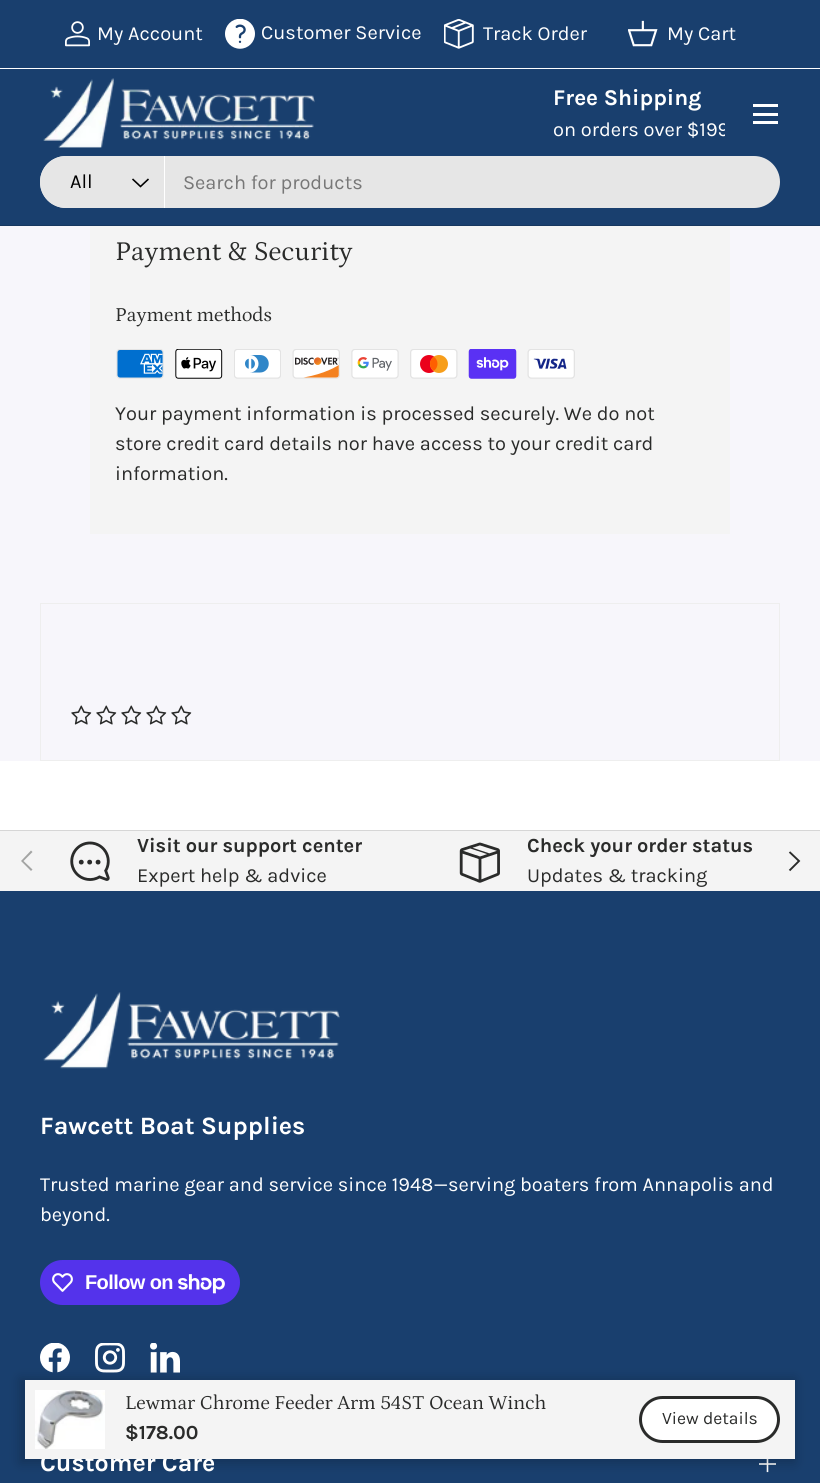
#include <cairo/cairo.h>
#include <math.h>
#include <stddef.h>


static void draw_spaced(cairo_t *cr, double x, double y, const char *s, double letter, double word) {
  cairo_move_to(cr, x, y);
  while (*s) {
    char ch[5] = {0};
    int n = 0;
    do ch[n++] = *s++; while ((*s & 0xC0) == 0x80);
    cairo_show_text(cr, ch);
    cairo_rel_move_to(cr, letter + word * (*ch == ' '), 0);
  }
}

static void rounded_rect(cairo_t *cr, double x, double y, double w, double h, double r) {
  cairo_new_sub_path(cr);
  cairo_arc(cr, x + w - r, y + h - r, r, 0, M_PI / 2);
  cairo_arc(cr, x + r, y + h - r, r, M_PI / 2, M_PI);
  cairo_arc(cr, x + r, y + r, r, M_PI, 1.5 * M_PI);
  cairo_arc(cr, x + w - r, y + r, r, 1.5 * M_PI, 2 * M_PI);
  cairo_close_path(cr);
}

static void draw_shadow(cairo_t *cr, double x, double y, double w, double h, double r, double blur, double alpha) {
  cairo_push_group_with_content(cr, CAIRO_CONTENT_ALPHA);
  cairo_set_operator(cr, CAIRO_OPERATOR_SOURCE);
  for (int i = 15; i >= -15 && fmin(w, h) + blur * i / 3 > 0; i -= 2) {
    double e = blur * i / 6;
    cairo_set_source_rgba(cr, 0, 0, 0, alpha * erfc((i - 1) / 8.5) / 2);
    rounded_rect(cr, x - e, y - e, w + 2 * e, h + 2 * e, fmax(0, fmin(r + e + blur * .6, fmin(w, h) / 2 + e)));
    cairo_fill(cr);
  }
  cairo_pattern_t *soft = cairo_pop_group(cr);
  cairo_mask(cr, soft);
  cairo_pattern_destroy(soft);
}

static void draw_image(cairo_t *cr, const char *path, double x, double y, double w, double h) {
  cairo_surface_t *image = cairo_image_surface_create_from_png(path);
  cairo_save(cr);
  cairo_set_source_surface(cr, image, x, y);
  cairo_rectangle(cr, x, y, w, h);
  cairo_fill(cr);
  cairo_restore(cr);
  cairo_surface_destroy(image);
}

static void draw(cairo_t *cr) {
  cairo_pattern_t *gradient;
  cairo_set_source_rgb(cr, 1, 1, 1);
  cairo_paint(cr);
  cairo_set_source_rgb(cr, 25 / 255.0, 63 / 255.0, 110 / 255.0);
  cairo_rectangle(cr, 0, 0, 820, 68);
  cairo_fill(cr);
  draw_image(cr, "images/1.png", 65, 21, 25, 26);
  draw_image(cr, "images/2.png", 225, 19, 30, 30);
  draw_image(cr, "images/3.png", 444, 19, 30, 30);
  draw_image(cr, "images/4.png", 628, 20, 30, 27);
  cairo_rectangle(cr, 0, 69, 820, 156);
  cairo_fill(cr);
  cairo_set_source_rgb(cr, 22 / 255.0, 55 / 255.0, 95 / 255.0);
  cairo_rectangle(cr, 0, 225, 820, 1);
  cairo_fill(cr);
  draw_image(cr, "images/5.png", 43, 78, 272, 70);
  cairo_set_source_rgb(cr, 1, 1, 1);
  cairo_rectangle(cr, 753, 104, 25, 3);
  cairo_fill(cr);
  cairo_rectangle(cr, 753, 121, 25, 3);
  cairo_fill(cr);
  cairo_rectangle(cr, 753, 113, 25, 3);
  cairo_fill(cr);
  cairo_set_source_rgb(cr, 230 / 255.0, 230 / 255.0, 230 / 255.0);
  rounded_rect(cr, 40, 156, 740, 52, 26);
  cairo_fill(cr);
  cairo_new_path(cr);
  cairo_move_to(cr, 66, 156);
  cairo_line_to(cr, 165, 156);
  cairo_line_to(cr, 165, 208);
  cairo_line_to(cr, 66, 208);
  cairo_curve_to(cr, 51.5, 208, 40, 196.5, 40, 182);
  cairo_curve_to(cr, 40, 167.5, 51.5, 156, 66, 156);
  cairo_close_path(cr);
  cairo_fill(cr);
  cairo_set_source_rgb(cr, 1, 1, 1);
  cairo_rectangle(cr, 164, 156, 1, 52);
  cairo_fill(cr);
  cairo_new_path(cr);
  cairo_move_to(cr, 148.5, 179);
  cairo_line_to(cr, 140.5, 186.5);
  cairo_line_to(cr, 132.5, 179);
  cairo_set_source_rgb(cr, 0, 0, 0);
  cairo_set_line_width(cr, 1.6);
  cairo_stroke(cr);
  cairo_set_source_rgb(cr, 247 / 255.0, 246 / 255.0, 251 / 255.0);
  cairo_rectangle(cr, 0, 226, 820, 535);
  cairo_fill(cr);
  cairo_set_source_rgb(cr, 244 / 255.0, 244 / 255.0, 244 / 255.0);
  cairo_rectangle(cr, 90, 226, 640, 308);
  cairo_fill(cr);
  draw_image(cr, "images/6.png", 116, 349, 48, 30);
  draw_image(cr, "images/7.png", 175, 349, 48, 30);
  draw_image(cr, "images/8.png", 234, 349, 47, 30);
  draw_image(cr, "images/9.png", 292, 349, 48, 30);
  draw_image(cr, "images/10.png", 351, 349, 48, 30);
  draw_image(cr, "images/11.png", 410, 349, 48, 30);
  draw_image(cr, "images/12.png", 468, 349, 49, 30);
  draw_image(cr, "images/13.png", 527, 349, 48, 30);
  cairo_rectangle(cr, 40.5, 603.5, 739, 157);
  cairo_set_source_rgb(cr, 238 / 255.0, 238 / 255.0, 238 / 255.0);
  cairo_set_line_width(cr, 1);
  cairo_stroke(cr);
  draw_image(cr, "images/14.png", 71, 705, 21, 20);
  draw_image(cr, "images/14.png", 96, 705, 21, 20);
  draw_image(cr, "images/14.png", 121, 705, 21, 20);
  draw_image(cr, "images/14.png", 146, 705, 21, 20);
  draw_image(cr, "images/14.png", 171, 705, 21, 20);
  cairo_set_source_rgb(cr, 25 / 255.0, 63 / 255.0, 110 / 255.0);
  cairo_rectangle(cr, 0, 891, 820, 592);
  cairo_fill(cr);
  draw_image(cr, "images/21.png", 40, 1343, 30, 30);
  draw_image(cr, "images/22.png", 95, 1343, 30, 30);
  draw_image(cr, "images/23.png", 150, 1343, 30, 30);
  draw_image(cr, "images/24.png", 759, 1459, 17, 14);
  cairo_set_source_rgb(cr, 0, 0, 0);
  draw_shadow(cr, 20, 1379, 775, 84, 0, 6, 0.2);
  cairo_set_source_rgb(cr, 244 / 255.0, 244 / 255.0, 244 / 255.0);
  cairo_rectangle(cr, 0, 831, 820, 60);
  cairo_fill(cr);
  cairo_set_source_rgb(cr, 214 / 255.0, 214 / 255.0, 214 / 255.0);
  cairo_rectangle(cr, 0, 830, 820, 1);
  cairo_fill(cr);
  draw_image(cr, "images/16.png", 70, 841, 40, 40);
  draw_image(cr, "images/17.png", 459, 842, 41, 41);
  cairo_set_source_rgb(cr, 163 / 255.0, 164 / 255.0, 163 / 255.0);
  cairo_new_path(cr);
  cairo_move_to(cr, 21, 861);
  cairo_line_to(cr, 31, 850.5);
  cairo_line_to(cr, 32.5, 852);
  cairo_line_to(cr, 23.5, 861);
  cairo_line_to(cr, 32.5, 869.5);
  cairo_line_to(cr, 31, 871);
  cairo_close_path(cr);
  cairo_fill(cr);
  cairo_new_path(cr);
  cairo_move_to(cr, 789.5, 852);
  cairo_line_to(cr, 799, 861);
  cairo_line_to(cr, 789.5, 870.5);
  cairo_set_source_rgb(cr, 42 / 255.0, 43 / 255.0, 42 / 255.0);
  cairo_set_line_width(cr, 1.9);
  cairo_stroke(cr);
  draw_image(cr, "images/18.png", 43, 992, 297, 77);
  cairo_set_source_rgb(cr, 84 / 255.0, 51 / 255.0, 235 / 255.0);
  rounded_rect(cr, 40, 1260, 200, 45, 22.5);
  cairo_fill(cr);
  draw_image(cr, "images/19.png", 52, 1273, 21, 19);
  draw_image(cr, "images/20.png", 178, 1274, 47, 20);
  cairo_select_font_face(cr, "Karla", CAIRO_FONT_SLANT_NORMAL, CAIRO_FONT_WEIGHT_NORMAL);
  cairo_set_font_size(cr, 20);
  cairo_set_source_rgb(cr, 1, 1, 1);
  cairo_move_to(cr, 97, 40);
  cairo_show_text(cr, "My Account");
  cairo_move_to(cr, 261, 39);
  cairo_show_text(cr, "Customer Service");
  cairo_move_to(cr, 483, 40);
  cairo_show_text(cr, "Track Order");
  cairo_move_to(cr, 667, 40);
  cairo_show_text(cr, "My Cart");
  cairo_select_font_face(cr, "Karla", CAIRO_FONT_SLANT_NORMAL, CAIRO_FONT_WEIGHT_BOLD);
  cairo_set_font_size(cr, 22.5);
  cairo_move_to(cr, 553, 105);
  cairo_show_text(cr, "Free Shipping");
  cairo_select_font_face(cr, "Karla", CAIRO_FONT_SLANT_NORMAL, CAIRO_FONT_WEIGHT_NORMAL);
  cairo_set_font_size(cr, 20);
  cairo_move_to(cr, 553, 136);
  cairo_show_text(cr, "on orders over $199");
  cairo_set_source_rgb(cr, 25 / 255.0, 63 / 255.0, 110 / 255.0);
  cairo_rectangle(cr, 725, 123, 4, 13);
  cairo_fill(cr);
  cairo_set_source_rgb(cr, 0, 0, 0);
  cairo_move_to(cr, 70, 188);
  cairo_show_text(cr, "All");
  cairo_set_source_rgb(cr, 119 / 255.0, 119 / 255.0, 119 / 255.0);
  cairo_move_to(cr, 183, 189);
  cairo_show_text(cr, "Search for products");
  cairo_select_font_face(cr, "Petrona", CAIRO_FONT_SLANT_NORMAL, CAIRO_FONT_WEIGHT_NORMAL);
  cairo_set_font_size(cr, 27.5);
  cairo_set_source_rgb(cr, 42 / 255.0, 43 / 255.0, 42 / 255.0);
  cairo_move_to(cr, 115, 260);
  cairo_show_text(cr, "Payment & Security");
  cairo_set_font_size(cr, 20);
  cairo_move_to(cr, 115, 321);
  cairo_show_text(cr, "Payment methods");
  cairo_select_font_face(cr, "Karla", CAIRO_FONT_SLANT_NORMAL, CAIRO_FONT_WEIGHT_NORMAL);
  cairo_move_to(cr, 115, 420);
  cairo_show_text(cr, "Your payment information is processed securely. We do not");
  cairo_move_to(cr, 115, 450);
  cairo_show_text(cr, "store credit card details nor have access to your credit card");
  cairo_move_to(cr, 115, 480);
  cairo_show_text(cr, "information.");
  cairo_select_font_face(cr, "Karla", CAIRO_FONT_SLANT_NORMAL, CAIRO_FONT_WEIGHT_BOLD);
  cairo_move_to(cr, 137, 852);
  cairo_show_text(cr, "Visit our support center");
  cairo_select_font_face(cr, "Karla", CAIRO_FONT_SLANT_NORMAL, CAIRO_FONT_WEIGHT_NORMAL);
  cairo_move_to(cr, 137, 882);
  cairo_show_text(cr, "Expert help & advice");
  cairo_select_font_face(cr, "Karla", CAIRO_FONT_SLANT_NORMAL, CAIRO_FONT_WEIGHT_BOLD);
  cairo_move_to(cr, 527, 852);
  cairo_show_text(cr, "Check your order status");
  cairo_select_font_face(cr, "Karla", CAIRO_FONT_SLANT_NORMAL, CAIRO_FONT_WEIGHT_NORMAL);
  cairo_move_to(cr, 527, 882);
  cairo_show_text(cr, "Updates & tracking");
  cairo_select_font_face(cr, "Karla", CAIRO_FONT_SLANT_NORMAL, CAIRO_FONT_WEIGHT_BOLD);
  cairo_set_font_size(cr, 25);
  cairo_set_source_rgb(cr, 1, 1, 1);
  cairo_move_to(cr, 40, 1134);
  cairo_show_text(cr, "Fawcett Boat Supplies");
  cairo_select_font_face(cr, "Karla", CAIRO_FONT_SLANT_NORMAL, CAIRO_FONT_WEIGHT_NORMAL);
  cairo_set_font_size(cr, 20);
  cairo_move_to(cr, 40, 1191);
  cairo_show_text(cr, "Trusted marine gear and service since 1948—serving boaters from Annapolis and");
  cairo_move_to(cr, 40, 1221);
  cairo_show_text(cr, "beyond.");
  cairo_select_font_face(cr, "Liberation Sans", CAIRO_FONT_SLANT_NORMAL, CAIRO_FONT_WEIGHT_BOLD);
  draw_spaced(cr, 85, 1289, "Follow on", -0.6, 0);
  cairo_select_font_face(cr, "Karla", CAIRO_FONT_SLANT_NORMAL, CAIRO_FONT_WEIGHT_BOLD);
  cairo_set_font_size(cr, 25);
  cairo_move_to(cr, 40, 1471);
  cairo_show_text(cr, "Customer Care");
  cairo_set_source_rgb(cr, 244 / 255.0, 244 / 255.0, 244 / 255.0);
  cairo_rectangle(cr, 25, 1380, 770, 79);
  cairo_fill(cr);
  cairo_save(cr);
  rounded_rect(cr, 639, 1396, 141, 47, 23.5);
  cairo_clip(cr);
  gradient = cairo_pattern_create_linear(376, 1370, 770, 1469);
  cairo_pattern_add_color_stop_rgba(gradient, 0.6, 42 / 255.0, 43 / 255.0, 42 / 255.0, 0.07);
  cairo_pattern_add_color_stop_rgba(gradient, 0.6, 1, 1, 1, 1);
  cairo_pattern_add_color_stop_rgba(gradient, 1, 1, 1, 1, 1);
  cairo_set_source(cr, gradient);
  cairo_pattern_destroy(gradient);
  cairo_rectangle(cr, 639, 1399, 139, 41);
  cairo_fill(cr);
  cairo_restore(cr);
  rounded_rect(cr, 640.5, 1397.5, 138, 44, 22);
  cairo_set_source_rgb(cr, 42 / 255.0, 43 / 255.0, 42 / 255.0);
  cairo_set_line_width(cr, 3);
  cairo_stroke(cr);
  cairo_select_font_face(cr, "Karla", CAIRO_FONT_SLANT_NORMAL, CAIRO_FONT_WEIGHT_NORMAL);
  cairo_set_font_size(cr, 17.5);
  cairo_move_to(cr, 662, 1424);
  cairo_show_text(cr, "View details");
  cairo_select_font_face(cr, "Petrona", CAIRO_FONT_SLANT_NORMAL, CAIRO_FONT_WEIGHT_NORMAL);
  cairo_set_font_size(cr, 20);
  cairo_move_to(cr, 125, 1409);
  cairo_show_text(cr, "Lewmar Chrome Feeder Arm 54ST Ocean Winch");
  cairo_select_font_face(cr, "Karla", CAIRO_FONT_SLANT_NORMAL, CAIRO_FONT_WEIGHT_BOLD);
  cairo_move_to(cr, 125, 1439);
  cairo_show_text(cr, "$178.00");
  draw_image(cr, "images/15.png", 35, 1390, 70, 59);
}

int main(void) {
  cairo_surface_t *surface = cairo_image_surface_create(CAIRO_FORMAT_RGB24, 820, 1483);
  cairo_t *cr = cairo_create(surface);
  cairo_font_options_t *options = cairo_font_options_create();
  cairo_font_options_set_hint_metrics(options, CAIRO_HINT_METRICS_OFF);
  cairo_font_options_set_hint_style(options, CAIRO_HINT_STYLE_NONE);
  cairo_set_font_options(cr, options);
  cairo_set_miter_limit(cr, 4);
  draw(cr);
  cairo_surface_write_to_png(surface, "out.png");
  cairo_font_options_destroy(options);
  cairo_destroy(cr);
  cairo_surface_destroy(surface);
  return 0;
}
